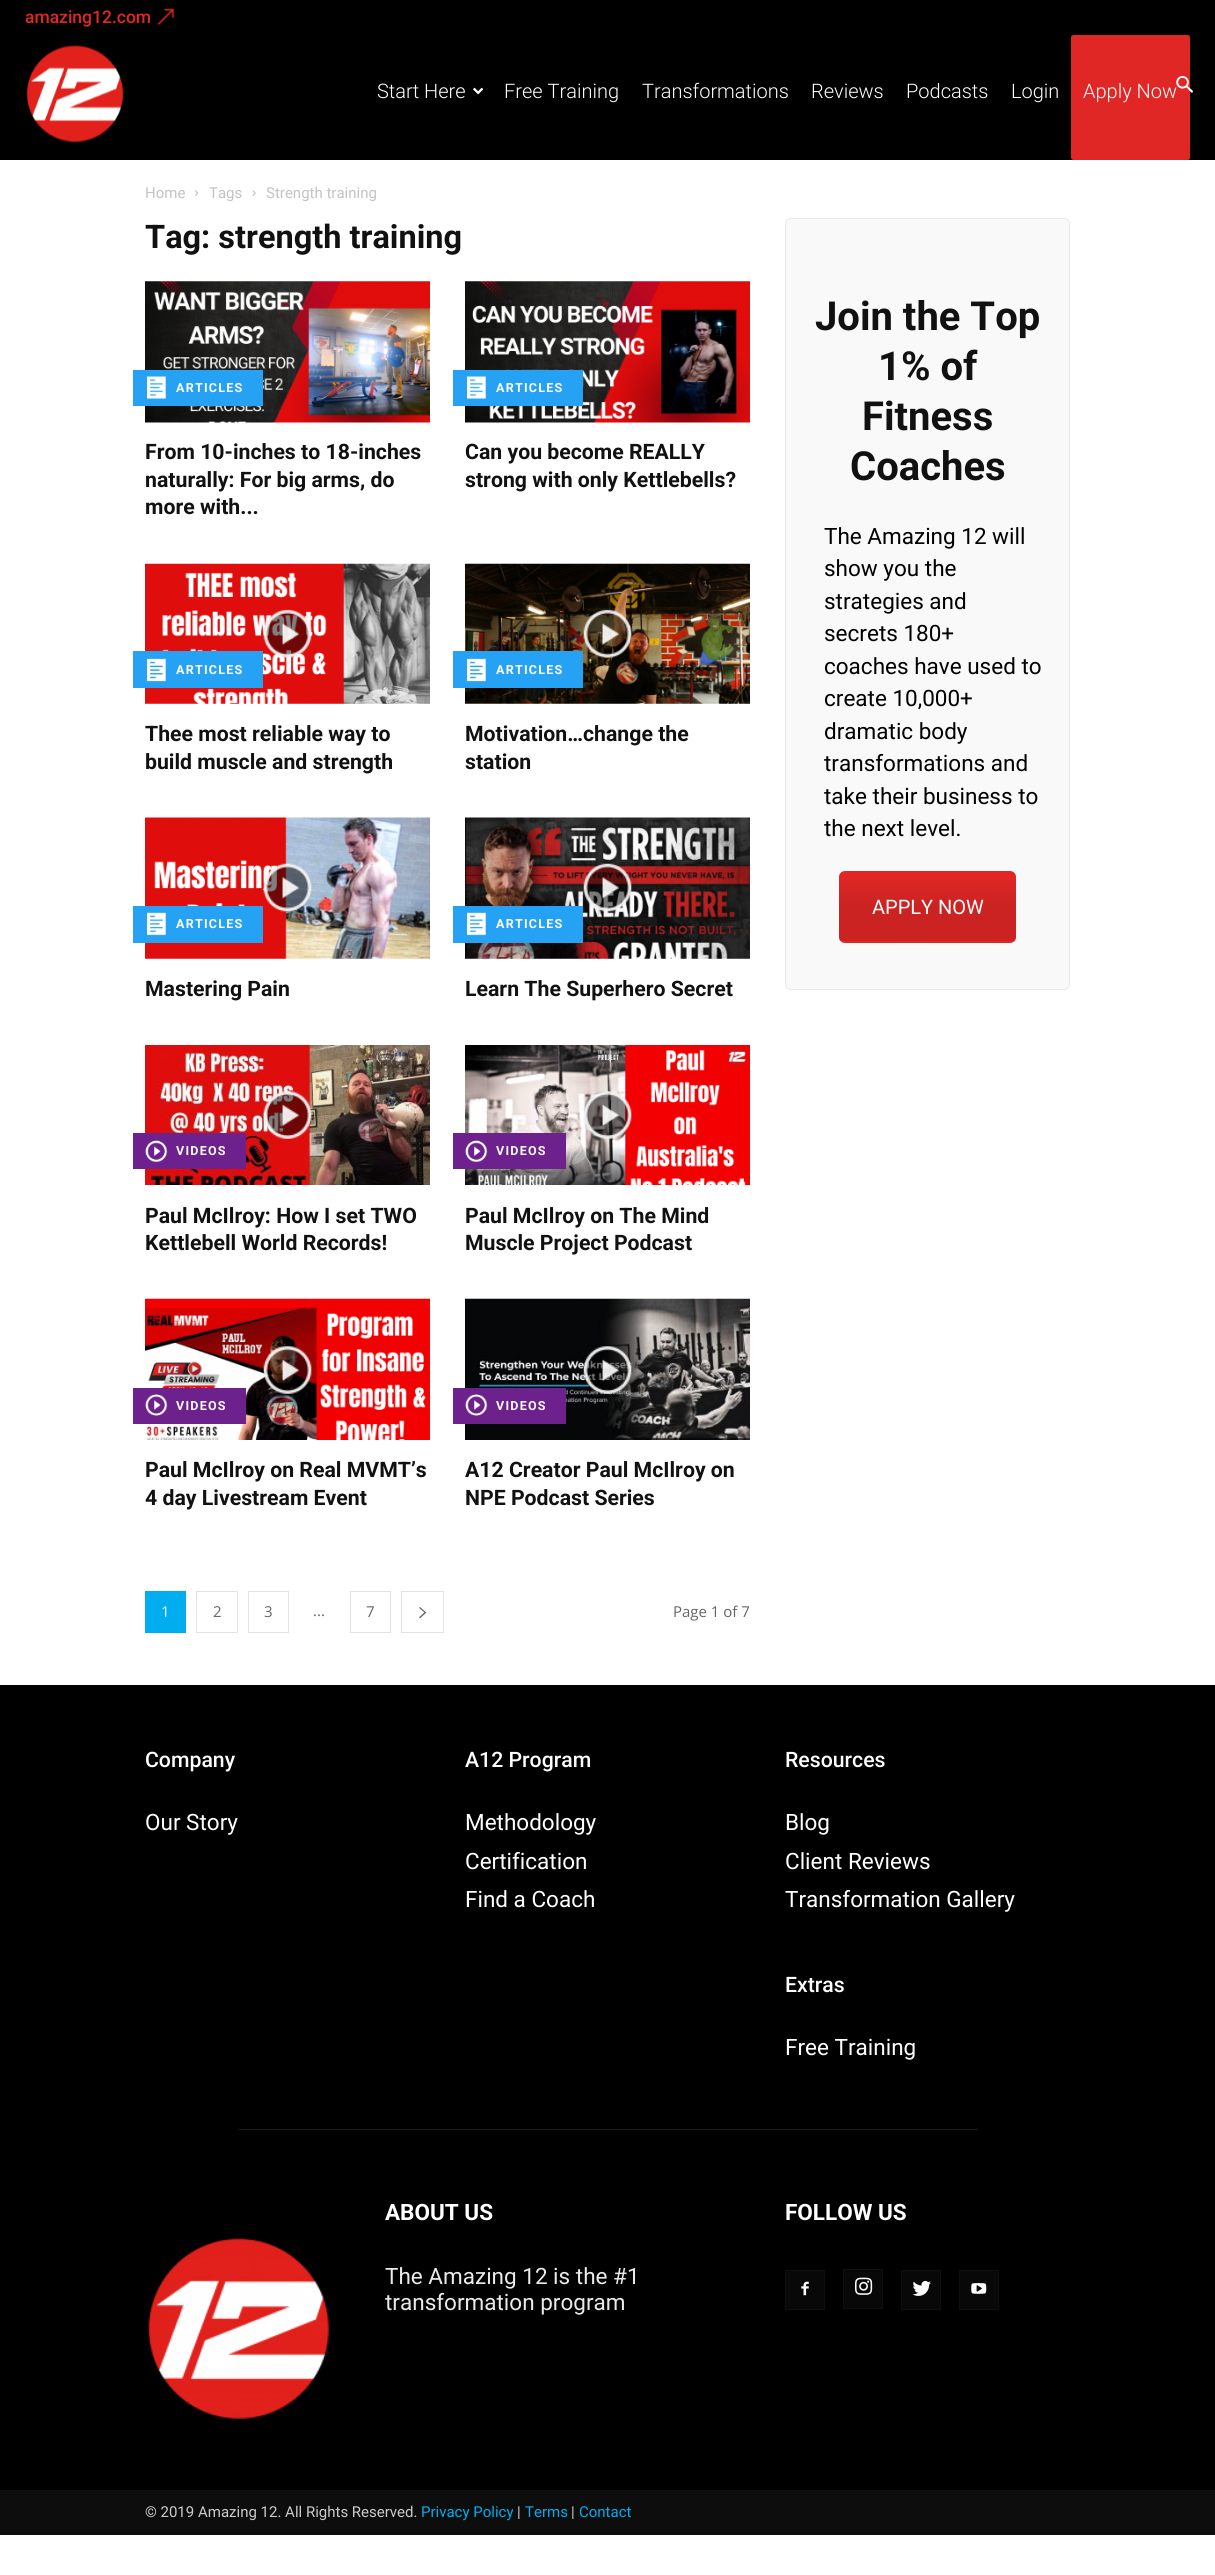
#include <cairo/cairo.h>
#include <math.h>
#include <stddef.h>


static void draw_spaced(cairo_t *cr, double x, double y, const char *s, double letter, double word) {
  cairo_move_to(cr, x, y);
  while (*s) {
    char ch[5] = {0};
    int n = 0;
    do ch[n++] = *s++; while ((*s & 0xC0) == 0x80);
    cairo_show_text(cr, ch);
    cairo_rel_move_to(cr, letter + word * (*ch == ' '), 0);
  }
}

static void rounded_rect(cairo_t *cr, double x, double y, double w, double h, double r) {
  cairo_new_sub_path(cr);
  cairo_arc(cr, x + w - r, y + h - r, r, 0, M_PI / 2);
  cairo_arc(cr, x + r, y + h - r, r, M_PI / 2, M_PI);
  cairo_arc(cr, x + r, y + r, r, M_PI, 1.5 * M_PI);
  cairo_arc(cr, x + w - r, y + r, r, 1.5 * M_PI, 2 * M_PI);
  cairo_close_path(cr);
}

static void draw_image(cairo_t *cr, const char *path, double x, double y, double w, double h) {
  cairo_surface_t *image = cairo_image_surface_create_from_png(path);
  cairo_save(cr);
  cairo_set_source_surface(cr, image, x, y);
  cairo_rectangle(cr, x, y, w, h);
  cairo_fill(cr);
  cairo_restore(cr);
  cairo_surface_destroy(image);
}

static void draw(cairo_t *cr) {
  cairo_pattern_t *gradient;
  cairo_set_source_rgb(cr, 1, 1, 1);
  cairo_paint(cr);
  cairo_set_source_rgb(cr, 0, 0, 0);
  cairo_rectangle(cr, 0, 0, 1215, 160);
  cairo_fill(cr);
  draw_image(cr, "images/1.png", 157, 8, 17, 17);
  draw_image(cr, "images/2.png", 26, 45, 98, 98);
  draw_image(cr, "images/3.png", 473, 87, 11, 8);
  cairo_set_source_rgb(cr, 225 / 255.0, 39 / 255.0, 38 / 255.0);
  rounded_rect(cr, 1071, 35, 119, 125, 2.5);
  cairo_fill(cr);
  draw_image(cr, "images/5.png", 195, 190, 4, 6);
  draw_image(cr, "images/6.png", 252, 190, 4, 6);
  draw_image(cr, "images/7.png", 145, 281, 285, 142);
  cairo_set_source_rgb(cr, 37 / 255.0, 162 / 255.0, 243 / 255.0);
  cairo_rectangle(cr, 133, 370, 130, 36);
  cairo_fill(cr);
  draw_image(cr, "images/8.png", 147, 376, 19, 23);
  draw_image(cr, "images/9.png", 465, 281, 285, 142);
  cairo_rectangle(cr, 453, 370, 130, 36);
  cairo_fill(cr);
  draw_image(cr, "images/10.png", 467, 376, 19, 23);
  draw_image(cr, "images/11.png", 145, 563, 285, 141);
  draw_image(cr, "images/12.png", 263, 609, 49, 49);
  cairo_rectangle(cr, 133, 651, 130, 37);
  cairo_fill(cr);
  draw_image(cr, "images/13.png", 147, 658, 19, 24);
  draw_image(cr, "images/14.png", 465, 563, 285, 141);
  draw_image(cr, "images/15.png", 583, 609, 49, 49);
  cairo_rectangle(cr, 453, 651, 130, 37);
  cairo_fill(cr);
  draw_image(cr, "images/16.png", 467, 658, 19, 24);
  draw_image(cr, "images/17.png", 145, 817, 285, 142);
  draw_image(cr, "images/18.png", 263, 863, 49, 49);
  cairo_rectangle(cr, 133, 906, 130, 37);
  cairo_fill(cr);
  draw_image(cr, "images/19.png", 147, 912, 19, 24);
  draw_image(cr, "images/20.png", 465, 817, 285, 142);
  draw_image(cr, "images/21.png", 583, 863, 49, 49);
  cairo_rectangle(cr, 453, 906, 130, 37);
  cairo_fill(cr);
  draw_image(cr, "images/22.png", 467, 912, 19, 24);
  draw_image(cr, "images/23.png", 145, 1045, 285, 140);
  draw_image(cr, "images/24.png", 263, 1091, 49, 48);
  cairo_set_source_rgb(cr, 108 / 255.0, 33 / 255.0, 141 / 255.0);
  cairo_rectangle(cr, 133, 1133, 113, 36);
  cairo_fill(cr);
  draw_image(cr, "images/25.png", 145, 1140, 23, 23);
  draw_image(cr, "images/26.png", 465, 1045, 285, 140);
  draw_image(cr, "images/27.png", 583, 1091, 49, 48);
  cairo_rectangle(cr, 453, 1133, 113, 36);
  cairo_fill(cr);
  draw_image(cr, "images/28.png", 465, 1140, 23, 23);
  draw_image(cr, "images/29.png", 145, 1298, 285, 142);
  draw_image(cr, "images/30.png", 263, 1346, 49, 48);
  cairo_rectangle(cr, 133, 1388, 113, 36);
  cairo_fill(cr);
  draw_image(cr, "images/31.png", 145, 1394, 23, 22);
  draw_image(cr, "images/32.png", 465, 1298, 285, 142);
  draw_image(cr, "images/33.png", 583, 1346, 49, 48);
  cairo_rectangle(cr, 453, 1388, 113, 36);
  cairo_fill(cr);
  draw_image(cr, "images/34.png", 465, 1394, 23, 22);
  cairo_set_source_rgb(cr, 0, 174 / 255.0, 239 / 255.0);
  cairo_rectangle(cr, 145, 1591, 41, 42);
  cairo_fill(cr);
  cairo_rectangle(cr, 196.5, 1591.5, 41, 41);
  cairo_set_source_rgb(cr, 227 / 255.0, 227 / 255.0, 227 / 255.0);
  cairo_set_line_width(cr, 1);
  cairo_stroke(cr);
  cairo_rectangle(cr, 248.5, 1591.5, 40, 41);
  cairo_stroke(cr);
  cairo_rectangle(cr, 350.5, 1591.5, 40, 41);
  cairo_stroke(cr);
  cairo_rectangle(cr, 401.5, 1591.5, 42, 41);
  cairo_stroke(cr);
  draw_image(cr, "images/35.png", 419, 1607, 8, 12);
  cairo_set_source_rgb(cr, 249 / 255.0, 249 / 255.0, 249 / 255.0);
  rounded_rect(cr, 785.5, 218.5, 284, 771, 5.5);
  cairo_fill_preserve(cr);
  cairo_set_source_rgb(cr, 232 / 255.0, 232 / 255.0, 232 / 255.0);
  cairo_stroke(cr);
  cairo_set_source_rgb(cr, 225 / 255.0, 39 / 255.0, 38 / 255.0);
  rounded_rect(cr, 839, 871, 177, 72, 6);
  cairo_fill(cr);
  gradient = cairo_pattern_create_linear(1015, 873, 1015, 941);
  cairo_pattern_add_color_stop_rgba(gradient, 0, 0, 0, 0, 0);
  cairo_pattern_add_color_stop_rgba(gradient, 0.5, 0, 0, 0, 0.1);
  cairo_pattern_add_color_stop_rgba(gradient, 1, 0, 0, 0, 0.1);
  cairo_set_source(cr, gradient);
  cairo_pattern_destroy(gradient);
  cairo_rectangle(cr, 839, 880, 177, 61);
  cairo_fill(cr);
  cairo_set_source_rgb(cr, 0, 0, 0);
  cairo_rectangle(cr, 0, 1685, 1215, 805);
  cairo_fill(cr);
  cairo_set_source_rgb(cr, 26 / 255.0, 26 / 255.0, 26 / 255.0);
  cairo_rectangle(cr, 238, 2129, 740, 1);
  cairo_fill(cr);
  cairo_set_source_rgb(cr, 8 / 255.0, 8 / 255.0, 8 / 255.0);
  cairo_rectangle(cr, 786, 2271, 38, 38);
  cairo_fill(cr);
  draw_image(cr, "images/36.png", 801, 2281, 8, 15);
  cairo_rectangle(cr, 785.5, 2270.5, 39, 39);
  cairo_set_source_rgb(cr, 15 / 255.0, 15 / 255.0, 15 / 255.0);
  cairo_stroke(cr);
  cairo_set_source_rgb(cr, 8 / 255.0, 8 / 255.0, 8 / 255.0);
  cairo_rectangle(cr, 844, 2270, 38, 38);
  cairo_fill(cr);
  draw_image(cr, "images/37.png", 855, 2277, 18, 18);
  cairo_rectangle(cr, 843.5, 2269.5, 39, 39);
  cairo_set_source_rgb(cr, 15 / 255.0, 15 / 255.0, 15 / 255.0);
  cairo_stroke(cr);
  cairo_set_source_rgb(cr, 8 / 255.0, 8 / 255.0, 8 / 255.0);
  cairo_rectangle(cr, 902, 2271, 38, 38);
  cairo_fill(cr);
  draw_image(cr, "images/38.png", 912, 2280, 19, 16);
  cairo_rectangle(cr, 901.5, 2270.5, 39, 39);
  cairo_set_source_rgb(cr, 15 / 255.0, 15 / 255.0, 15 / 255.0);
  cairo_stroke(cr);
  cairo_set_source_rgb(cr, 8 / 255.0, 8 / 255.0, 8 / 255.0);
  cairo_rectangle(cr, 960, 2271, 38, 38);
  cairo_fill(cr);
  draw_image(cr, "images/39.png", 971, 2283, 16, 11);
  cairo_rectangle(cr, 959.5, 2270.5, 39, 39);
  cairo_set_source_rgb(cr, 15 / 255.0, 15 / 255.0, 15 / 255.0);
  cairo_stroke(cr);
  draw_image(cr, "images/40.png", 148, 2238, 181, 181);
  cairo_set_source_rgb(cr, 13 / 255.0, 13 / 255.0, 13 / 255.0);
  cairo_rectangle(cr, 0, 2490, 1215, 45);
  cairo_fill(cr);
  cairo_select_font_face(cr, "Roboto Medium", CAIRO_FONT_SLANT_NORMAL, CAIRO_FONT_WEIGHT_NORMAL);
  cairo_set_font_size(cr, 17.5);
  cairo_set_source_rgb(cr, 225 / 255.0, 39 / 255.0, 38 / 255.0);
  cairo_move_to(cr, 25, 23);
  cairo_show_text(cr, "amazing12.com");
  cairo_select_font_face(cr, "Roboto Light", CAIRO_FONT_SLANT_NORMAL, CAIRO_FONT_WEIGHT_NORMAL);
  cairo_set_font_size(cr, 20);
  cairo_set_source_rgb(cr, 1, 1, 1);
  cairo_move_to(cr, 377, 98);
  cairo_show_text(cr, "Start Here");
  cairo_move_to(cr, 504, 98);
  cairo_show_text(cr, "Free Training");
  cairo_move_to(cr, 642, 98);
  cairo_show_text(cr, "Transformations");
  cairo_move_to(cr, 811, 98);
  cairo_show_text(cr, "Reviews");
  cairo_move_to(cr, 906, 98);
  cairo_show_text(cr, "Podcasts");
  cairo_move_to(cr, 1011, 98);
  cairo_show_text(cr, "Login");
  cairo_move_to(cr, 1083, 98);
  cairo_show_text(cr, "Apply Now");
  draw_image(cr, "images/4.png", 1176, 76, 17, 17);
  cairo_select_font_face(cr, "Roboto", CAIRO_FONT_SLANT_NORMAL, CAIRO_FONT_WEIGHT_NORMAL);
  cairo_set_font_size(cr, 15);
  cairo_set_source_rgb(cr, 195 / 255.0, 195 / 255.0, 195 / 255.0);
  cairo_move_to(cr, 145, 198);
  cairo_show_text(cr, "Home");
  cairo_move_to(cr, 209, 198);
  cairo_show_text(cr, "Tags");
  cairo_move_to(cr, 266, 198);
  cairo_show_text(cr, "Strength training");
  cairo_select_font_face(cr, "Roboto", CAIRO_FONT_SLANT_NORMAL, CAIRO_FONT_WEIGHT_BOLD);
  cairo_set_font_size(cr, 32.5);
  cairo_set_source_rgb(cr, 17 / 255.0, 17 / 255.0, 17 / 255.0);
  cairo_move_to(cr, 145, 248);
  cairo_show_text(cr, "Tag: strength training");
  cairo_set_font_size(cr, 12.5);
  cairo_set_source_rgb(cr, 1, 1, 1);
  draw_spaced(cr, 176, 392, "ARTICLES", 1.25, 0);
  cairo_set_font_size(cr, 21.25);
  cairo_set_source_rgb(cr, 17 / 255.0, 17 / 255.0, 17 / 255.0);
  cairo_move_to(cr, 145, 459);
  cairo_show_text(cr, "From 10-inches to 18-inches");
  cairo_move_to(cr, 145, 487);
  cairo_show_text(cr, "naturally: For big arms, do");
  cairo_move_to(cr, 145, 514);
  cairo_show_text(cr, "more with...");
  cairo_set_font_size(cr, 12.5);
  cairo_set_source_rgb(cr, 1, 1, 1);
  draw_spaced(cr, 496, 392, "ARTICLES", 1.25, 0);
  cairo_set_font_size(cr, 21.25);
  cairo_set_source_rgb(cr, 17 / 255.0, 17 / 255.0, 17 / 255.0);
  cairo_move_to(cr, 465, 459);
  cairo_show_text(cr, "Can you become REALLY");
  cairo_move_to(cr, 465, 487);
  cairo_show_text(cr, "strong with only Kettlebells?");
  cairo_set_font_size(cr, 12.5);
  cairo_set_source_rgb(cr, 1, 1, 1);
  draw_spaced(cr, 176, 674, "ARTICLES", 1.25, 0);
  cairo_set_font_size(cr, 21.25);
  cairo_set_source_rgb(cr, 17 / 255.0, 17 / 255.0, 17 / 255.0);
  cairo_move_to(cr, 145, 741);
  cairo_show_text(cr, "Thee most reliable way to");
  cairo_move_to(cr, 145, 769);
  cairo_show_text(cr, "build muscle and strength");
  cairo_set_font_size(cr, 12.5);
  cairo_set_source_rgb(cr, 1, 1, 1);
  draw_spaced(cr, 496, 674, "ARTICLES", 1.25, 0);
  cairo_set_font_size(cr, 21.25);
  cairo_set_source_rgb(cr, 17 / 255.0, 17 / 255.0, 17 / 255.0);
  cairo_move_to(cr, 465, 741);
  cairo_show_text(cr, "Motivation…change the");
  cairo_move_to(cr, 465, 769);
  cairo_show_text(cr, "station");
  cairo_set_font_size(cr, 12.5);
  cairo_set_source_rgb(cr, 1, 1, 1);
  draw_spaced(cr, 176, 928, "ARTICLES", 1.25, 0);
  cairo_set_font_size(cr, 21.25);
  cairo_set_source_rgb(cr, 17 / 255.0, 17 / 255.0, 17 / 255.0);
  cairo_move_to(cr, 145, 996);
  cairo_show_text(cr, "Mastering Pain");
  cairo_set_font_size(cr, 12.5);
  cairo_set_source_rgb(cr, 1, 1, 1);
  draw_spaced(cr, 496, 928, "ARTICLES", 1.25, 0);
  cairo_set_font_size(cr, 21.25);
  cairo_set_source_rgb(cr, 17 / 255.0, 17 / 255.0, 17 / 255.0);
  cairo_move_to(cr, 465, 996);
  cairo_show_text(cr, "Learn The Superhero Secret");
  cairo_set_font_size(cr, 12.5);
  cairo_set_source_rgb(cr, 1, 1, 1);
  draw_spaced(cr, 176, 1155, "VIDEOS", 1.25, 0);
  cairo_set_font_size(cr, 21.25);
  cairo_set_source_rgb(cr, 17 / 255.0, 17 / 255.0, 17 / 255.0);
  cairo_move_to(cr, 145, 1223);
  cairo_show_text(cr, "Paul McIlroy: How I set TWO");
  cairo_move_to(cr, 145, 1250);
  cairo_show_text(cr, "Kettlebell World Records!");
  cairo_set_font_size(cr, 12.5);
  cairo_set_source_rgb(cr, 1, 1, 1);
  draw_spaced(cr, 496, 1155, "VIDEOS", 1.25, 0);
  cairo_set_font_size(cr, 21.25);
  cairo_set_source_rgb(cr, 17 / 255.0, 17 / 255.0, 17 / 255.0);
  cairo_move_to(cr, 465, 1223);
  cairo_show_text(cr, "Paul McIlroy on The Mind");
  cairo_move_to(cr, 465, 1250);
  cairo_show_text(cr, "Muscle Project Podcast");
  cairo_set_font_size(cr, 12.5);
  cairo_set_source_rgb(cr, 1, 1, 1);
  draw_spaced(cr, 176, 1410, "VIDEOS", 1.25, 0);
  cairo_set_font_size(cr, 21.25);
  cairo_set_source_rgb(cr, 17 / 255.0, 17 / 255.0, 17 / 255.0);
  cairo_move_to(cr, 145, 1477);
  cairo_show_text(cr, "Paul McIlroy on Real MVMT’s");
  cairo_move_to(cr, 145, 1505);
  cairo_show_text(cr, "4 day Livestream Event");
  cairo_set_font_size(cr, 12.5);
  cairo_set_source_rgb(cr, 1, 1, 1);
  draw_spaced(cr, 496, 1410, "VIDEOS", 1.25, 0);
  cairo_set_font_size(cr, 21.25);
  cairo_set_source_rgb(cr, 17 / 255.0, 17 / 255.0, 17 / 255.0);
  cairo_move_to(cr, 465, 1477);
  cairo_show_text(cr, "A12 Creator Paul McIlroy on");
  cairo_move_to(cr, 465, 1505);
  cairo_show_text(cr, "NPE Podcast Series");
  cairo_select_font_face(cr, "Open Sans", CAIRO_FONT_SLANT_NORMAL, CAIRO_FONT_WEIGHT_NORMAL);
  cairo_set_font_size(cr, 15);
  cairo_set_source_rgb(cr, 1, 1, 1);
  cairo_move_to(cr, 161, 1617);
  cairo_show_text(cr, "1");
  cairo_set_source_rgb(cr, 102 / 255.0, 102 / 255.0, 102 / 255.0);
  cairo_move_to(cr, 213, 1617);
  cairo_show_text(cr, "2");
  cairo_move_to(cr, 264, 1617);
  cairo_show_text(cr, "3");
  cairo_move_to(cr, 313, 1616);
  cairo_show_text(cr, "...");
  cairo_move_to(cr, 366, 1617);
  cairo_show_text(cr, "7");
  cairo_move_to(cr, 673, 1617);
  cairo_show_text(cr, "Page 1 of 7");
  cairo_select_font_face(cr, "Roboto", CAIRO_FONT_SLANT_NORMAL, CAIRO_FONT_WEIGHT_BOLD);
  cairo_set_font_size(cr, 40);
  cairo_set_source_rgb(cr, 17 / 255.0, 17 / 255.0, 17 / 255.0);
  cairo_move_to(cr, 815, 330);
  cairo_show_text(cr, "Join the Top");
  cairo_move_to(cr, 878, 380);
  cairo_show_text(cr, "1% of");
  cairo_move_to(cr, 862, 430);
  cairo_show_text(cr, "Fitness");
  cairo_move_to(cr, 850, 480);
  cairo_show_text(cr, "Coaches");
  cairo_select_font_face(cr, "Roboto", CAIRO_FONT_SLANT_NORMAL, CAIRO_FONT_WEIGHT_NORMAL);
  cairo_set_font_size(cr, 22.5);
  cairo_set_source_rgb(cr, 0, 0, 0);
  cairo_move_to(cr, 824, 544);
  cairo_show_text(cr, "The Amazing 12 will");
  cairo_move_to(cr, 824, 576);
  cairo_show_text(cr, "show you the");
  cairo_move_to(cr, 824, 609);
  cairo_show_text(cr, "strategies and");
  cairo_move_to(cr, 824, 641);
  cairo_show_text(cr, "secrets 180+");
  cairo_move_to(cr, 824, 674);
  cairo_show_text(cr, "coaches have used to");
  cairo_move_to(cr, 824, 706);
  cairo_show_text(cr, "create 10,000+");
  cairo_move_to(cr, 824, 739);
  cairo_show_text(cr, "dramatic body");
  cairo_move_to(cr, 824, 771);
  cairo_show_text(cr, "transformations and");
  cairo_move_to(cr, 824, 804);
  cairo_show_text(cr, "take their business to");
  cairo_move_to(cr, 824, 836);
  cairo_show_text(cr, "the next level.");
  cairo_set_font_size(cr, 20);
  cairo_set_source_rgb(cr, 1, 1, 1);
  cairo_move_to(cr, 872, 914);
  cairo_show_text(cr, "APPLY NOW");
  cairo_select_font_face(cr, "Roboto Medium", CAIRO_FONT_SLANT_NORMAL, CAIRO_FONT_WEIGHT_NORMAL);
  cairo_set_font_size(cr, 21.25);
  cairo_move_to(cr, 145, 1767);
  cairo_show_text(cr, "Company");
  cairo_select_font_face(cr, "Roboto", CAIRO_FONT_SLANT_NORMAL, CAIRO_FONT_WEIGHT_NORMAL);
  cairo_set_font_size(cr, 22.5);
  cairo_move_to(cr, 145, 1830);
  cairo_show_text(cr, "Our Story");
  cairo_select_font_face(cr, "Roboto Medium", CAIRO_FONT_SLANT_NORMAL, CAIRO_FONT_WEIGHT_NORMAL);
  cairo_set_font_size(cr, 21.25);
  cairo_move_to(cr, 465, 1767);
  cairo_show_text(cr, "A12 Program");
  cairo_select_font_face(cr, "Roboto", CAIRO_FONT_SLANT_NORMAL, CAIRO_FONT_WEIGHT_NORMAL);
  cairo_set_font_size(cr, 22.5);
  cairo_move_to(cr, 465, 1830);
  cairo_show_text(cr, "Methodology");
  cairo_move_to(cr, 465, 1869);
  cairo_show_text(cr, "Certification");
  cairo_move_to(cr, 465, 1907);
  cairo_show_text(cr, "Find a Coach");
  cairo_select_font_face(cr, "Roboto Medium", CAIRO_FONT_SLANT_NORMAL, CAIRO_FONT_WEIGHT_NORMAL);
  cairo_set_font_size(cr, 21.25);
  cairo_move_to(cr, 785, 1767);
  cairo_show_text(cr, "Resources");
  cairo_select_font_face(cr, "Roboto", CAIRO_FONT_SLANT_NORMAL, CAIRO_FONT_WEIGHT_NORMAL);
  cairo_set_font_size(cr, 22.5);
  cairo_move_to(cr, 785, 1830);
  cairo_show_text(cr, "Blog");
  cairo_move_to(cr, 785, 1869);
  cairo_show_text(cr, "Client Reviews");
  cairo_move_to(cr, 785, 1907);
  cairo_show_text(cr, "Transformation Gallery");
  cairo_select_font_face(cr, "Roboto Medium", CAIRO_FONT_SLANT_NORMAL, CAIRO_FONT_WEIGHT_NORMAL);
  cairo_set_font_size(cr, 21.25);
  cairo_move_to(cr, 785, 1992);
  cairo_show_text(cr, "Extras");
  cairo_select_font_face(cr, "Roboto", CAIRO_FONT_SLANT_NORMAL, CAIRO_FONT_WEIGHT_NORMAL);
  cairo_set_font_size(cr, 22.5);
  cairo_move_to(cr, 785, 2055);
  cairo_show_text(cr, "Free Training");
  cairo_select_font_face(cr, "Roboto", CAIRO_FONT_SLANT_NORMAL, CAIRO_FONT_WEIGHT_BOLD);
  cairo_move_to(cr, 385, 2220);
  cairo_show_text(cr, "ABOUT US");
  cairo_select_font_face(cr, "Roboto", CAIRO_FONT_SLANT_NORMAL, CAIRO_FONT_WEIGHT_NORMAL);
  cairo_set_source_rgb(cr, 234 / 255.0, 234 / 255.0, 234 / 255.0);
  cairo_move_to(cr, 385, 2284);
  cairo_show_text(cr, "The Amazing 12 is the #1");
  cairo_move_to(cr, 385, 2310);
  cairo_show_text(cr, "transformation program");
  cairo_select_font_face(cr, "Roboto", CAIRO_FONT_SLANT_NORMAL, CAIRO_FONT_WEIGHT_BOLD);
  cairo_set_source_rgb(cr, 1, 1, 1);
  cairo_move_to(cr, 785, 2220);
  cairo_show_text(cr, "FOLLOW US");
  cairo_select_font_face(cr, "Roboto", CAIRO_FONT_SLANT_NORMAL, CAIRO_FONT_WEIGHT_NORMAL);
  cairo_set_font_size(cr, 15);
  cairo_set_source_rgb(cr, 204 / 255.0, 204 / 255.0, 204 / 255.0);
  cairo_move_to(cr, 145, 2517);
  cairo_show_text(cr, "© 2019 Amazing 12. All Rights Reserved.");
  cairo_set_source_rgb(cr, 0, 174 / 255.0, 239 / 255.0);
  cairo_move_to(cr, 421, 2517);
  cairo_show_text(cr, "Privacy Policy");
  cairo_set_source_rgb(cr, 204 / 255.0, 204 / 255.0, 204 / 255.0);
  cairo_move_to(cr, 517, 2517);
  cairo_show_text(cr, "|");
  cairo_set_source_rgb(cr, 0, 174 / 255.0, 239 / 255.0);
  cairo_move_to(cr, 525, 2517);
  cairo_show_text(cr, "Terms");
  cairo_set_source_rgb(cr, 204 / 255.0, 204 / 255.0, 204 / 255.0);
  cairo_move_to(cr, 571, 2517);
  cairo_show_text(cr, "|");
  cairo_set_source_rgb(cr, 0, 174 / 255.0, 239 / 255.0);
  cairo_move_to(cr, 579, 2517);
  cairo_show_text(cr, "Contact");
}

int main(void) {
  cairo_surface_t *surface = cairo_image_surface_create(CAIRO_FORMAT_RGB24, 1215, 2575);
  cairo_t *cr = cairo_create(surface);
  cairo_font_options_t *options = cairo_font_options_create();
  cairo_font_options_set_hint_metrics(options, CAIRO_HINT_METRICS_OFF);
  cairo_font_options_set_hint_style(options, CAIRO_HINT_STYLE_NONE);
  cairo_set_font_options(cr, options);
  cairo_set_miter_limit(cr, 4);
  draw(cr);
  cairo_surface_write_to_png(surface, "out.png");
  cairo_font_options_destroy(options);
  cairo_destroy(cr);
  cairo_surface_destroy(surface);
  return 0;
}
